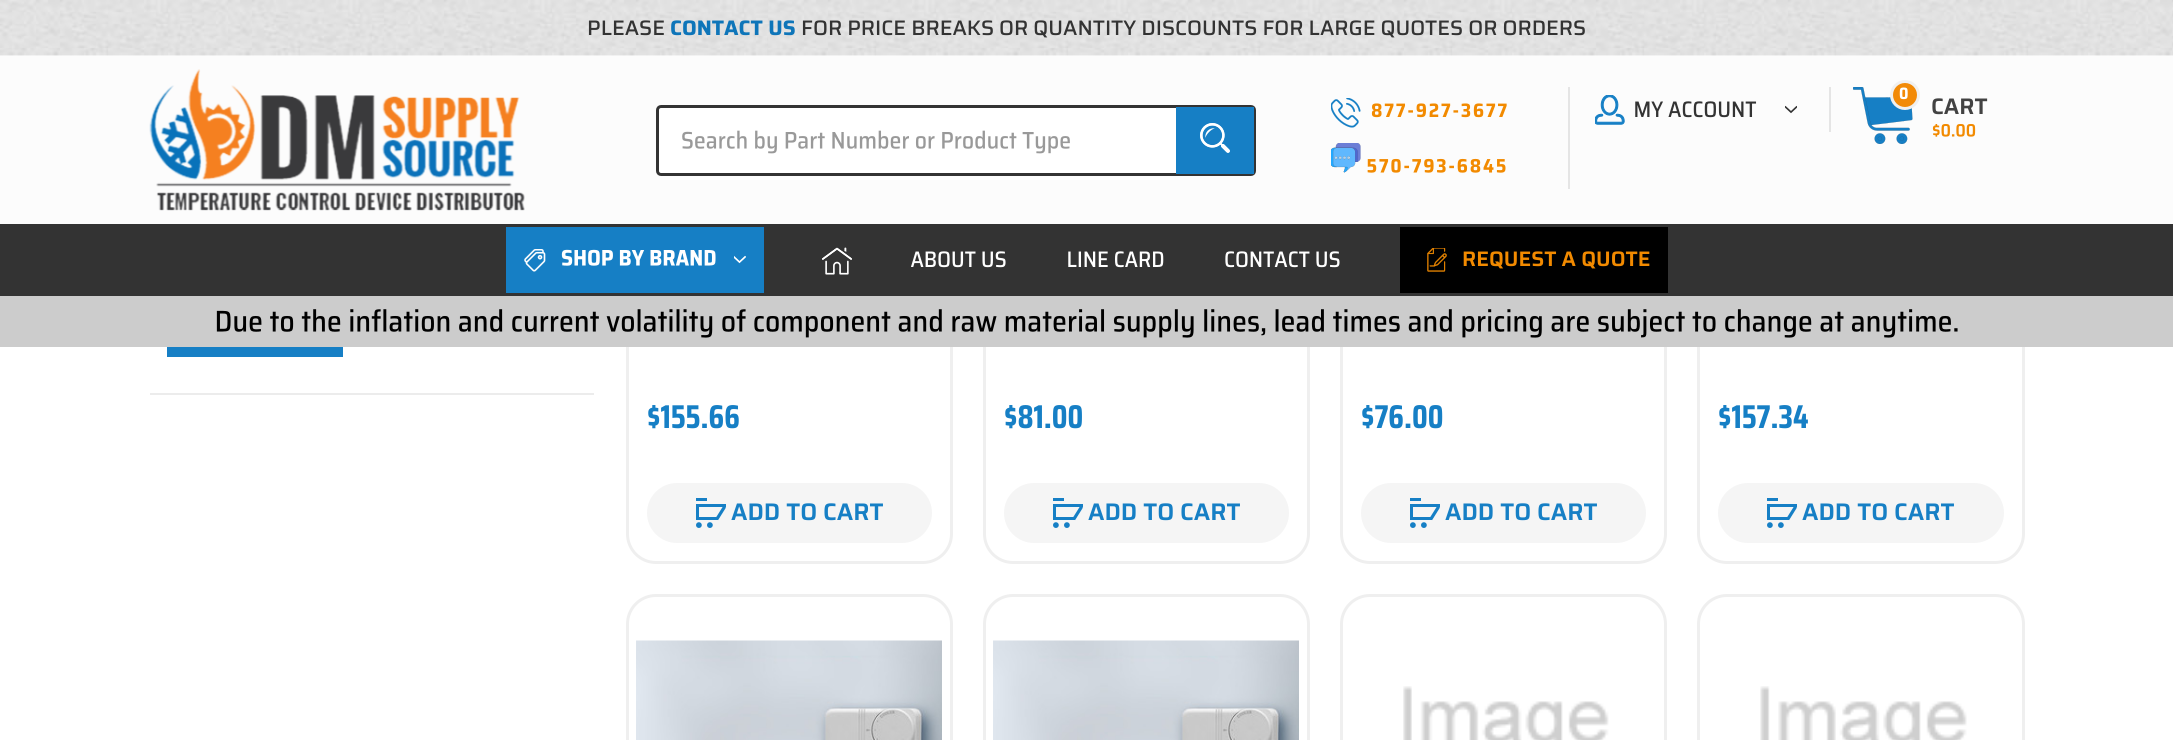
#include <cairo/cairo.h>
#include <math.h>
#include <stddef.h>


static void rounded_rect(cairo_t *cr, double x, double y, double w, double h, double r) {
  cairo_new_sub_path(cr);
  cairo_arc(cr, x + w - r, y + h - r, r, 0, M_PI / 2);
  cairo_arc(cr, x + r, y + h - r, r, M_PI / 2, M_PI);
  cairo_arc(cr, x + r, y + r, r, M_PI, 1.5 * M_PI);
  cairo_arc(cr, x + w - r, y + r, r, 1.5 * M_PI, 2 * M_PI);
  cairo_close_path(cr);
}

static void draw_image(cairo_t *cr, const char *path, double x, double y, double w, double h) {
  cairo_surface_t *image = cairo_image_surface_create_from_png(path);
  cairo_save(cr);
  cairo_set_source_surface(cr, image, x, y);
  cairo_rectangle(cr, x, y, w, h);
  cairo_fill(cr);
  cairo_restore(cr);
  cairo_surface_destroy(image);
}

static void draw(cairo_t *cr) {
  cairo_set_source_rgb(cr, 1, 1, 1);
  cairo_paint(cr);
  rounded_rect(cr, 627.5, -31.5, 324, 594, 28.5);
  cairo_set_source_rgb(cr, 239 / 255.0, 239 / 255.0, 239 / 255.0);
  cairo_set_line_width(cr, 3);
  cairo_stroke(cr);
  rounded_rect(cr, 984.5, -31.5, 324, 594, 28.5);
  cairo_stroke(cr);
  rounded_rect(cr, 1341.5, -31.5, 324, 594, 28.5);
  cairo_stroke(cr);
  rounded_rect(cr, 1698.5, -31.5, 325, 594, 28.5);
  cairo_stroke(cr);
  cairo_set_source_rgb(cr, 1, 1, 1);
  cairo_rectangle(cr, 626, 55, 1399, 1);
  cairo_fill(cr);
  draw_image(cr, "images/1.png", 0, 0, 2173, 56);
  cairo_set_source_rgb(cr, 252 / 255.0, 252 / 255.0, 252 / 255.0);
  cairo_rectangle(cr, 0, 56, 2173, 168);
  cairo_fill(cr);
  draw_image(cr, "images/2.png", 149, 69, 376, 142);
  cairo_set_source_rgb(cr, 1, 1, 1);
  rounded_rect(cr, 657.5, 106.5, 597, 68, 3.5);
  cairo_fill_preserve(cr);
  cairo_set_source_rgb(cr, 51 / 255.0, 51 / 255.0, 51 / 255.0);
  cairo_stroke(cr);
  draw_image(cr, "images/3.png", 682, 130, 388, 24);
  cairo_set_source_rgb(cr, 22 / 255.0, 127 / 255.0, 197 / 255.0);
  cairo_rectangle(cr, 1176, 107, 78, 67);
  cairo_fill(cr);
  draw_image(cr, "images/4.png", 1200, 123, 30, 30);
  cairo_set_source_rgb(cr, 229 / 255.0, 229 / 255.0, 229 / 255.0);
  cairo_rectangle(cr, 1568, 87, 2, 102);
  cairo_fill(cr);
  draw_image(cr, "images/5.png", 1331, 98, 30, 30);
  draw_image(cr, "images/6.png", 1371, 103, 136, 15);
  draw_image(cr, "images/7.png", 1331, 143, 30, 30);
  draw_image(cr, "images/8.png", 1367, 158, 139, 15);
  cairo_rectangle(cr, 1829, 87, 2, 45);
  cairo_fill(cr);
  draw_image(cr, "images/9.png", 1595, 95, 30, 30);
  draw_image(cr, "images/10.png", 1635, 101, 122, 17);
  draw_image(cr, "images/11.png", 1785, 105, 12, 9);
  draw_image(cr, "images/13.png", 1853, 87, 60, 57);
  cairo_set_source_rgb(cr, 242 / 255.0, 138 / 255.0, 7 / 255.0);
  cairo_arc(cr, 1905, 95, 13.5, 0, 2 * M_PI);
  cairo_fill_preserve(cr);
  cairo_set_source_rgb(cr, 240 / 255.0, 240 / 255.0, 240 / 255.0);
  cairo_stroke(cr);
  draw_image(cr, "images/12.png", 1899, 87, 9, 13);
  draw_image(cr, "images/14.png", 1932, 124, 44, 13);
  cairo_set_source_rgb(cr, 51 / 255.0, 51 / 255.0, 51 / 255.0);
  cairo_rectangle(cr, 0, 224, 2173, 72);
  cairo_fill(cr);
  cairo_set_source_rgb(cr, 22 / 255.0, 127 / 255.0, 197 / 255.0);
  cairo_rectangle(cr, 506, 227, 258, 66);
  cairo_fill(cr);
  draw_image(cr, "images/15.png", 524, 249, 22, 23);
  draw_image(cr, "images/16.png", 561, 249, 155, 17);
  draw_image(cr, "images/17.png", 734, 255, 12, 9);
  draw_image(cr, "images/18.png", 822, 247, 30, 28);
  draw_image(cr, "images/19.png", 911, 251, 95, 17);
  draw_image(cr, "images/20.png", 1068, 251, 96, 17);
  draw_image(cr, "images/21.png", 1225, 251, 115, 17);
  cairo_set_source_rgb(cr, 0, 0, 0);
  cairo_rectangle(cr, 1400, 227, 268, 66);
  cairo_fill(cr);
  draw_image(cr, "images/22.png", 1427, 248, 20, 24);
  cairo_set_source_rgb(cr, 204 / 255.0, 204 / 255.0, 204 / 255.0);
  cairo_rectangle(cr, 0, 296, 2173, 51);
  cairo_fill(cr);
  draw_image(cr, "images/23.png", 216, 309, 1742, 29);
  cairo_set_source_rgb(cr, 236 / 255.0, 236 / 255.0, 236 / 255.0);
  cairo_rectangle(cr, 150, 393, 444, 2);
  cairo_fill(cr);
  cairo_set_source_rgb(cr, 22 / 255.0, 127 / 255.0, 197 / 255.0);
  cairo_rectangle(cr, 167, 347, 176, 10);
  cairo_fill(cr);
  cairo_set_source_rgb(cr, 245 / 255.0, 245 / 255.0, 245 / 255.0);
  rounded_rect(cr, 647, 483, 285, 60, 30);
  cairo_fill(cr);
  draw_image(cr, "images/24.png", 696, 498, 30, 30);
  rounded_rect(cr, 1004, 483, 285, 60, 30);
  cairo_fill(cr);
  draw_image(cr, "images/24.png", 1053, 498, 30, 30);
  rounded_rect(cr, 1361, 483, 285, 60, 30);
  cairo_fill(cr);
  draw_image(cr, "images/24.png", 1410, 498, 30, 30);
  rounded_rect(cr, 1718, 483, 286, 60, 30);
  cairo_fill(cr);
  draw_image(cr, "images/24.png", 1767, 498, 30, 30);
  rounded_rect(cr, 627.5, 595.5, 324, 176, 28.5);
  cairo_set_source_rgb(cr, 239 / 255.0, 239 / 255.0, 239 / 255.0);
  cairo_stroke(cr);
  draw_image(cr, "images/25.png", 636, 640, 306, 100);
  rounded_rect(cr, 984.5, 595.5, 324, 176, 28.5);
  cairo_stroke(cr);
  draw_image(cr, "images/25.png", 993, 640, 306, 100);
  rounded_rect(cr, 1341.5, 595.5, 324, 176, 28.5);
  cairo_stroke(cr);
  draw_image(cr, "images/26.png", 1403, 686, 206, 54);
  rounded_rect(cr, 1698.5, 595.5, 325, 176, 28.5);
  cairo_stroke(cr);
  draw_image(cr, "images/27.png", 1760, 686, 207, 54);
  cairo_select_font_face(cr, "Saira Medium", CAIRO_FONT_SLANT_NORMAL, CAIRO_FONT_WEIGHT_NORMAL);
  cairo_set_font_size(cr, 21);
  cairo_set_source_rgb(cr, 51 / 255.0, 51 / 255.0, 51 / 255.0);
  cairo_move_to(cr, 587, 35);
  cairo_show_text(cr, "PLEASE");
  cairo_select_font_face(cr, "Saira", CAIRO_FONT_SLANT_NORMAL, CAIRO_FONT_WEIGHT_BOLD);
  cairo_set_source_rgb(cr, 14 / 255.0, 117 / 255.0, 185 / 255.0);
  cairo_move_to(cr, 670, 35);
  cairo_show_text(cr, "CONTACT US");
  cairo_select_font_face(cr, "Saira Medium", CAIRO_FONT_SLANT_NORMAL, CAIRO_FONT_WEIGHT_NORMAL);
  cairo_set_source_rgb(cr, 51 / 255.0, 51 / 255.0, 51 / 255.0);
  cairo_move_to(cr, 801, 35);
  cairo_show_text(cr, "FOR PRICE BREAKS OR QUANTITY DISCOUNTS FOR LARGE QUOTES OR ORDERS");
  cairo_select_font_face(cr, "Saira SemiBold", CAIRO_FONT_SLANT_NORMAL, CAIRO_FONT_WEIGHT_NORMAL);
  cairo_set_font_size(cr, 22.5);
  cairo_set_source_rgb(cr, 66 / 255.0, 66 / 255.0, 66 / 255.0);
  cairo_move_to(cr, 1931, 114);
  cairo_show_text(cr, "CART");
  cairo_set_font_size(cr, 21);
  cairo_set_source_rgb(cr, 242 / 255.0, 138 / 255.0, 0);
  cairo_move_to(cr, 1462, 266);
  cairo_show_text(cr, "REQUEST A QUOTE");
  cairo_select_font_face(cr, "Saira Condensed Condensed", CAIRO_FONT_SLANT_NORMAL, CAIRO_FONT_WEIGHT_BOLD);
  cairo_set_font_size(cr, 33);
  cairo_set_source_rgb(cr, 22 / 255.0, 127 / 255.0, 197 / 255.0);
  cairo_move_to(cr, 647, 428);
  cairo_show_text(cr, "$155.66");
  cairo_select_font_face(cr, "Saira SemiBold", CAIRO_FONT_SLANT_NORMAL, CAIRO_FONT_WEIGHT_NORMAL);
  cairo_set_font_size(cr, 24);
  cairo_move_to(cr, 731, 520);
  cairo_show_text(cr, "ADD TO CART");
  cairo_select_font_face(cr, "Saira Condensed Condensed", CAIRO_FONT_SLANT_NORMAL, CAIRO_FONT_WEIGHT_BOLD);
  cairo_set_font_size(cr, 33);
  cairo_move_to(cr, 1004, 428);
  cairo_show_text(cr, "$81.00");
  cairo_select_font_face(cr, "Saira SemiBold", CAIRO_FONT_SLANT_NORMAL, CAIRO_FONT_WEIGHT_NORMAL);
  cairo_set_font_size(cr, 24);
  cairo_move_to(cr, 1088, 520);
  cairo_show_text(cr, "ADD TO CART");
  cairo_select_font_face(cr, "Saira Condensed Condensed", CAIRO_FONT_SLANT_NORMAL, CAIRO_FONT_WEIGHT_BOLD);
  cairo_set_font_size(cr, 33);
  cairo_move_to(cr, 1361, 428);
  cairo_show_text(cr, "$76.00");
  cairo_select_font_face(cr, "Saira SemiBold", CAIRO_FONT_SLANT_NORMAL, CAIRO_FONT_WEIGHT_NORMAL);
  cairo_set_font_size(cr, 24);
  cairo_move_to(cr, 1445, 520);
  cairo_show_text(cr, "ADD TO CART");
  cairo_select_font_face(cr, "Saira Condensed Condensed", CAIRO_FONT_SLANT_NORMAL, CAIRO_FONT_WEIGHT_BOLD);
  cairo_set_font_size(cr, 33);
  cairo_move_to(cr, 1718, 428);
  cairo_show_text(cr, "$157.34");
  cairo_select_font_face(cr, "Saira SemiBold", CAIRO_FONT_SLANT_NORMAL, CAIRO_FONT_WEIGHT_NORMAL);
  cairo_set_font_size(cr, 24);
  cairo_move_to(cr, 1802, 520);
  cairo_show_text(cr, "ADD TO CART");
}

int main(void) {
  cairo_surface_t *surface = cairo_image_surface_create(CAIRO_FORMAT_RGB24, 2173, 740);
  cairo_t *cr = cairo_create(surface);
  cairo_font_options_t *options = cairo_font_options_create();
  cairo_font_options_set_hint_metrics(options, CAIRO_HINT_METRICS_OFF);
  cairo_font_options_set_hint_style(options, CAIRO_HINT_STYLE_NONE);
  cairo_set_font_options(cr, options);
  cairo_set_miter_limit(cr, 4);
  draw(cr);
  cairo_surface_write_to_png(surface, "out.png");
  cairo_font_options_destroy(options);
  cairo_destroy(cr);
  cairo_surface_destroy(surface);
  return 0;
}
